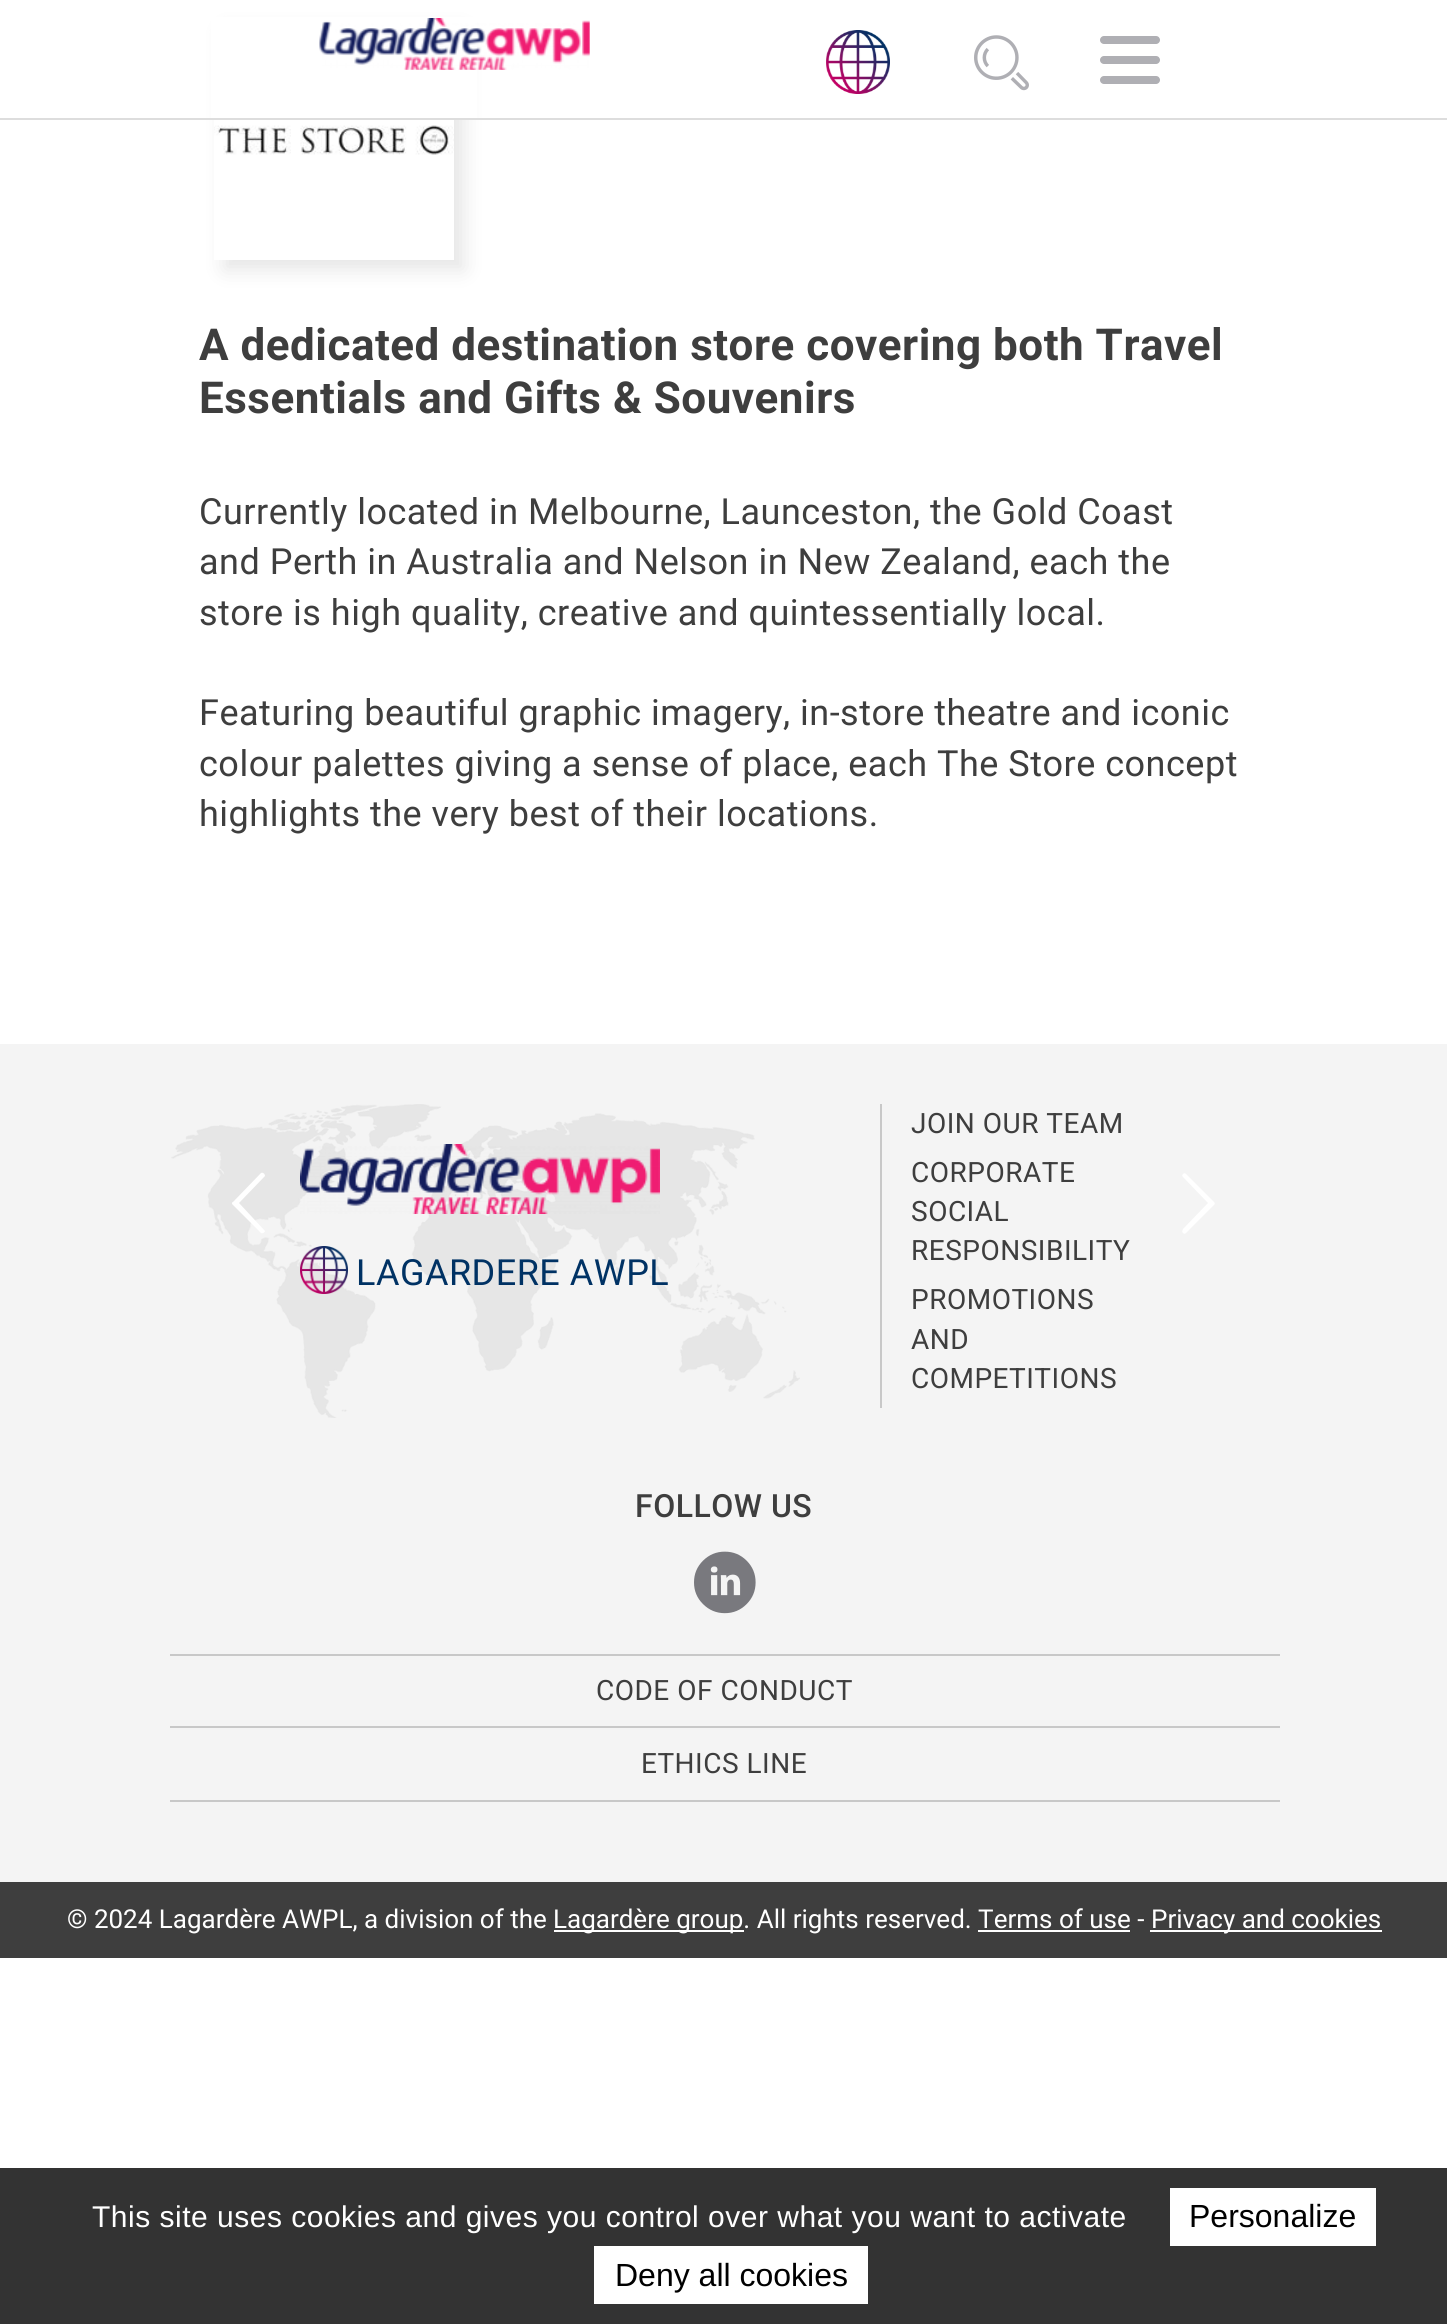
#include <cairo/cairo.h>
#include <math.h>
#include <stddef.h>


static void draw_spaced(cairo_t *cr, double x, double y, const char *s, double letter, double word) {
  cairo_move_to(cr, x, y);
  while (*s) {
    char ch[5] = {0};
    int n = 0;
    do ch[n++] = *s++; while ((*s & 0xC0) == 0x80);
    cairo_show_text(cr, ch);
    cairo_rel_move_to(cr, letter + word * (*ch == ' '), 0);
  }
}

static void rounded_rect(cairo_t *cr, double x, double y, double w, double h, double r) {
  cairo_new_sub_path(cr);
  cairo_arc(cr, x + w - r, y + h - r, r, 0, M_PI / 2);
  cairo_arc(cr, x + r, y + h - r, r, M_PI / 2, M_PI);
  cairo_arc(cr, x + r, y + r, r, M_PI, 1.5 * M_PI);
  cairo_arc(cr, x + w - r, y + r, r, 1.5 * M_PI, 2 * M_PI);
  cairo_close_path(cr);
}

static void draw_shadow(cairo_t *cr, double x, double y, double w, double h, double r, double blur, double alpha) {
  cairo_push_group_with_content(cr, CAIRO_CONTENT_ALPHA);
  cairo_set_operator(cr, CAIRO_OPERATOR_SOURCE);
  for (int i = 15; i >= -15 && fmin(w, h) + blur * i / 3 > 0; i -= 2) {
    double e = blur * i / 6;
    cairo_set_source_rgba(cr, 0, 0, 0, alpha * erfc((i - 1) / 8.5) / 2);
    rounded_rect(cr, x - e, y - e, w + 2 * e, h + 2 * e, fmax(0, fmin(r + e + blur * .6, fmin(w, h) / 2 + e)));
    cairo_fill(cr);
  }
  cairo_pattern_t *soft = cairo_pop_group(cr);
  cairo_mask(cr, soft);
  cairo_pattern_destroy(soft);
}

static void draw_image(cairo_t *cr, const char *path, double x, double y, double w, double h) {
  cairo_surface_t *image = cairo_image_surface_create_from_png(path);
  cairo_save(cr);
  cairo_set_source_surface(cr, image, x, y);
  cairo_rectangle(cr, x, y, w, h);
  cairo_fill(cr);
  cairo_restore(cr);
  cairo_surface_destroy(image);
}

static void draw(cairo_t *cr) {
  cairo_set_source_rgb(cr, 1, 1, 1);
  cairo_paint(cr);
  cairo_save(cr);
  cairo_set_fill_rule(cr, CAIRO_FILL_RULE_EVEN_ODD);
  cairo_new_path(cr);
  cairo_move_to(cr, 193, 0);
  cairo_line_to(cr, 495, 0);
  cairo_line_to(cr, 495, 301);
  cairo_line_to(cr, 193, 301);
  cairo_close_path(cr);
  cairo_move_to(cr, 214, 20);
  cairo_line_to(cr, 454, 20);
  cairo_line_to(cr, 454, 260);
  cairo_line_to(cr, 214, 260);
  cairo_close_path(cr);
  cairo_clip(cr);
  cairo_set_source_rgb(cr, 0, 0, 0);
  draw_shadow(cr, 224, 30, 240, 240, 0, 10, 0.1);
  cairo_restore(cr);
  cairo_set_source_rgb(cr, 1, 1, 1);
  cairo_rectangle(cr, 211, 17, 266, 101);
  cairo_fill(cr);
  cairo_set_source_rgb(cr, 221 / 255.0, 221 / 255.0, 221 / 255.0);
  cairo_rectangle(cr, 0, 118, 1447, 2);
  cairo_fill(cr);
  draw_image(cr, "images/1.png", 319, 18, 271, 52);
  draw_image(cr, "images/2.png", 826, 30, 64, 64);
  draw_image(cr, "images/3.png", 974, 35, 55, 56);
  cairo_set_source_rgb(cr, 175 / 255.0, 175 / 255.0, 180 / 255.0);
  rounded_rect(cr, 1100, 56, 60, 8, 4);
  cairo_fill(cr);
  rounded_rect(cr, 1100, 36, 60, 8, 4);
  cairo_fill(cr);
  rounded_rect(cr, 1100, 76, 60, 8, 4);
  cairo_fill(cr);
  draw_image(cr, "images/4.png", 214, 125, 240, 30);
  cairo_set_source_rgb(cr, 244 / 255.0, 244 / 255.0, 244 / 255.0);
  cairo_rectangle(cr, 0, 1044, 1447, 838);
  cairo_fill(cr);
  draw_image(cr, "images/5.png", 171, 1104, 629, 314);
  cairo_set_source_rgb(cr, 1, 1, 1);
  cairo_new_path(cr);
  cairo_move_to(cr, 233, 1202);
  cairo_curve_to(cr, 232, 1202, 232, 1203, 232, 1204);
  cairo_line_to(cr, 261, 1233);
  cairo_curve_to(cr, 263, 1234, 265, 1232, 265, 1231);
  cairo_line_to(cr, 239, 1203);
  cairo_line_to(cr, 265, 1176);
  cairo_curve_to(cr, 265, 1174, 263, 1172, 261, 1173);
  cairo_close_path(cr);
  cairo_fill(cr);
  cairo_new_path(cr);
  cairo_move_to(cr, 1183, 1229);
  cairo_curve_to(cr, 1182, 1231, 1182, 1232, 1183, 1233);
  cairo_curve_to(cr, 1184, 1234, 1185, 1234, 1186, 1233);
  cairo_line_to(cr, 1214, 1205);
  cairo_curve_to(cr, 1215, 1204, 1215, 1203, 1214, 1202);
  cairo_line_to(cr, 1186, 1174);
  cairo_curve_to(cr, 1185, 1173, 1184, 1173, 1183, 1174);
  cairo_curve_to(cr, 1182, 1175, 1182, 1176, 1183, 1177);
  cairo_line_to(cr, 1208, 1203);
  cairo_close_path(cr);
  cairo_fill(cr);
  draw_image(cr, "images/6.png", 300, 1144, 360, 70);
  draw_image(cr, "images/7.png", 300, 1246, 48, 48);
  cairo_set_source_rgb(cr, 200 / 255.0, 200 / 255.0, 200 / 255.0);
  cairo_rectangle(cr, 880, 1104, 2, 304);
  cairo_fill(cr);
  draw_image(cr, "images/8.png", 694, 1551, 62, 63);
  cairo_rectangle(cr, 170, 1654, 1110, 2);
  cairo_fill(cr);
  cairo_rectangle(cr, 170, 1726, 1110, 2);
  cairo_fill(cr);
  cairo_rectangle(cr, 170, 1800, 1110, 2);
  cairo_fill(cr);
  cairo_set_source_rgb(cr, 62 / 255.0, 62 / 255.0, 62 / 255.0);
  cairo_rectangle(cr, 0, 1882, 1447, 76);
  cairo_fill(cr);
  cairo_set_source_rgb(cr, 1, 1, 1);
  cairo_rectangle(cr, 554, 1930, 190, 2);
  cairo_fill(cr);
  cairo_rectangle(cr, 1150, 1930, 232, 2);
  cairo_fill(cr);
  cairo_rectangle(cr, 978, 1930, 152, 2);
  cairo_fill(cr);
  cairo_set_source_rgb(cr, 51 / 255.0, 51 / 255.0, 51 / 255.0);
  cairo_rectangle(cr, 0, 2168, 1447, 156);
  cairo_fill(cr);
  cairo_set_source_rgb(cr, 1, 1, 1);
  cairo_rectangle(cr, 1170, 2188, 206, 58);
  cairo_fill(cr);
  cairo_rectangle(cr, 594, 2246, 274, 58);
  cairo_fill(cr);
  cairo_select_font_face(cr, "Roboto", CAIRO_FONT_SLANT_NORMAL, CAIRO_FONT_WEIGHT_BOLD);
  cairo_set_font_size(cr, 44);
  cairo_set_source_rgb(cr, 62 / 255.0, 62 / 255.0, 62 / 255.0);
  draw_spaced(cr, 199, 360, "A dedicated destination store covering both Travel", 0.5, 0);
  draw_spaced(cr, 199, 413, "Essentials and Gifts & Souvenirs", 0.5, 0);
  cairo_select_font_face(cr, "Roboto", CAIRO_FONT_SLANT_NORMAL, CAIRO_FONT_WEIGHT_NORMAL);
  cairo_set_font_size(cr, 36);
  draw_spaced(cr, 199, 524, "Currently located in Melbourne, Launceston, the Gold Coast", 0.5, 0);
  draw_spaced(cr, 199, 574, "and Perth in Australia and Nelson in New Zealand, each the", 0.5, 0);
  draw_spaced(cr, 199, 625, "store is high quality, creative and quintessentially local.", 0.5, 0);
  draw_spaced(cr, 199, 725, "Featuring beautiful graphic imagery, in-store theatre and iconic", 0.5, 0);
  draw_spaced(cr, 199, 776, "colour palettes giving a sense of place, each The Store concept", 0.5, 0);
  draw_spaced(cr, 199, 826, "highlights the very best of their locations.", 0.5, 0);
  cairo_set_source_rgb(cr, 0, 50 / 255.0, 100 / 255.0);
  draw_spaced(cr, 356, 1285, "LAGARDERE AWPL", 0.5, 0);
  cairo_set_font_size(cr, 28);
  cairo_set_source_rgb(cr, 62 / 255.0, 62 / 255.0, 62 / 255.0);
  draw_spaced(cr, 911, 1133, "JOIN OUR TEAM", 0.5, 0);
  draw_spaced(cr, 911, 1182, "CORPORATE", 0.5, 0);
  draw_spaced(cr, 911, 1221, "SOCIAL", 0.5, 0);
  draw_spaced(cr, 911, 1260, "RESPONSIBILITY", 0.5, 0);
  draw_spaced(cr, 911, 1309, "PROMOTIONS", 0.5, 0);
  draw_spaced(cr, 911, 1349, "AND", 0.5, 0);
  draw_spaced(cr, 911, 1388, "COMPETITIONS", 0.5, 0);
  cairo_select_font_face(cr, "Roboto Medium", CAIRO_FONT_SLANT_NORMAL, CAIRO_FONT_WEIGHT_NORMAL);
  cairo_set_font_size(cr, 32);
  draw_spaced(cr, 635, 1517, "FOLLOW US", 0.5, 0);
  cairo_select_font_face(cr, "Roboto", CAIRO_FONT_SLANT_NORMAL, CAIRO_FONT_WEIGHT_NORMAL);
  cairo_set_font_size(cr, 28);
  draw_spaced(cr, 596, 1700, "CODE OF CONDUCT", 0.5, 0);
  draw_spaced(cr, 641, 1773, "ETHICS LINE", 0.5, 0);
  cairo_set_font_size(cr, 26);
  cairo_set_source_rgb(cr, 1, 1, 1);
  cairo_move_to(cr, 67, 1928);
  cairo_show_text(cr, "© 2024 Lagardère AWPL, a division of the");
  cairo_move_to(cr, 553, 1928);
  cairo_show_text(cr, "Lagardère group. All rights reserved. Terms of use -");
  cairo_move_to(cr, 1151, 1928);
  cairo_show_text(cr, "Privacy and cookies");
  cairo_select_font_face(cr, "Liberation Sans", CAIRO_FONT_SLANT_NORMAL, CAIRO_FONT_WEIGHT_NORMAL);
  cairo_set_font_size(cr, 30);
  draw_spaced(cr, 92, 2227, "This site uses cookies and gives you control over what you want to activate", 0.5, 0);
  cairo_set_font_size(cr, 32);
  cairo_set_source_rgb(cr, 0, 0, 0);
  cairo_move_to(cr, 1189, 2227);
  cairo_show_text(cr, "Personalize");
  cairo_move_to(cr, 615, 2286);
  cairo_show_text(cr, "Deny all cookies");
}

int main(void) {
  cairo_surface_t *surface = cairo_image_surface_create(CAIRO_FORMAT_RGB24, 1447, 2324);
  cairo_t *cr = cairo_create(surface);
  cairo_font_options_t *options = cairo_font_options_create();
  cairo_font_options_set_hint_metrics(options, CAIRO_HINT_METRICS_OFF);
  cairo_font_options_set_hint_style(options, CAIRO_HINT_STYLE_NONE);
  cairo_set_font_options(cr, options);
  cairo_set_miter_limit(cr, 4);
  draw(cr);
  cairo_surface_write_to_png(surface, "out.png");
  cairo_font_options_destroy(options);
  cairo_destroy(cr);
  cairo_surface_destroy(surface);
  return 0;
}
